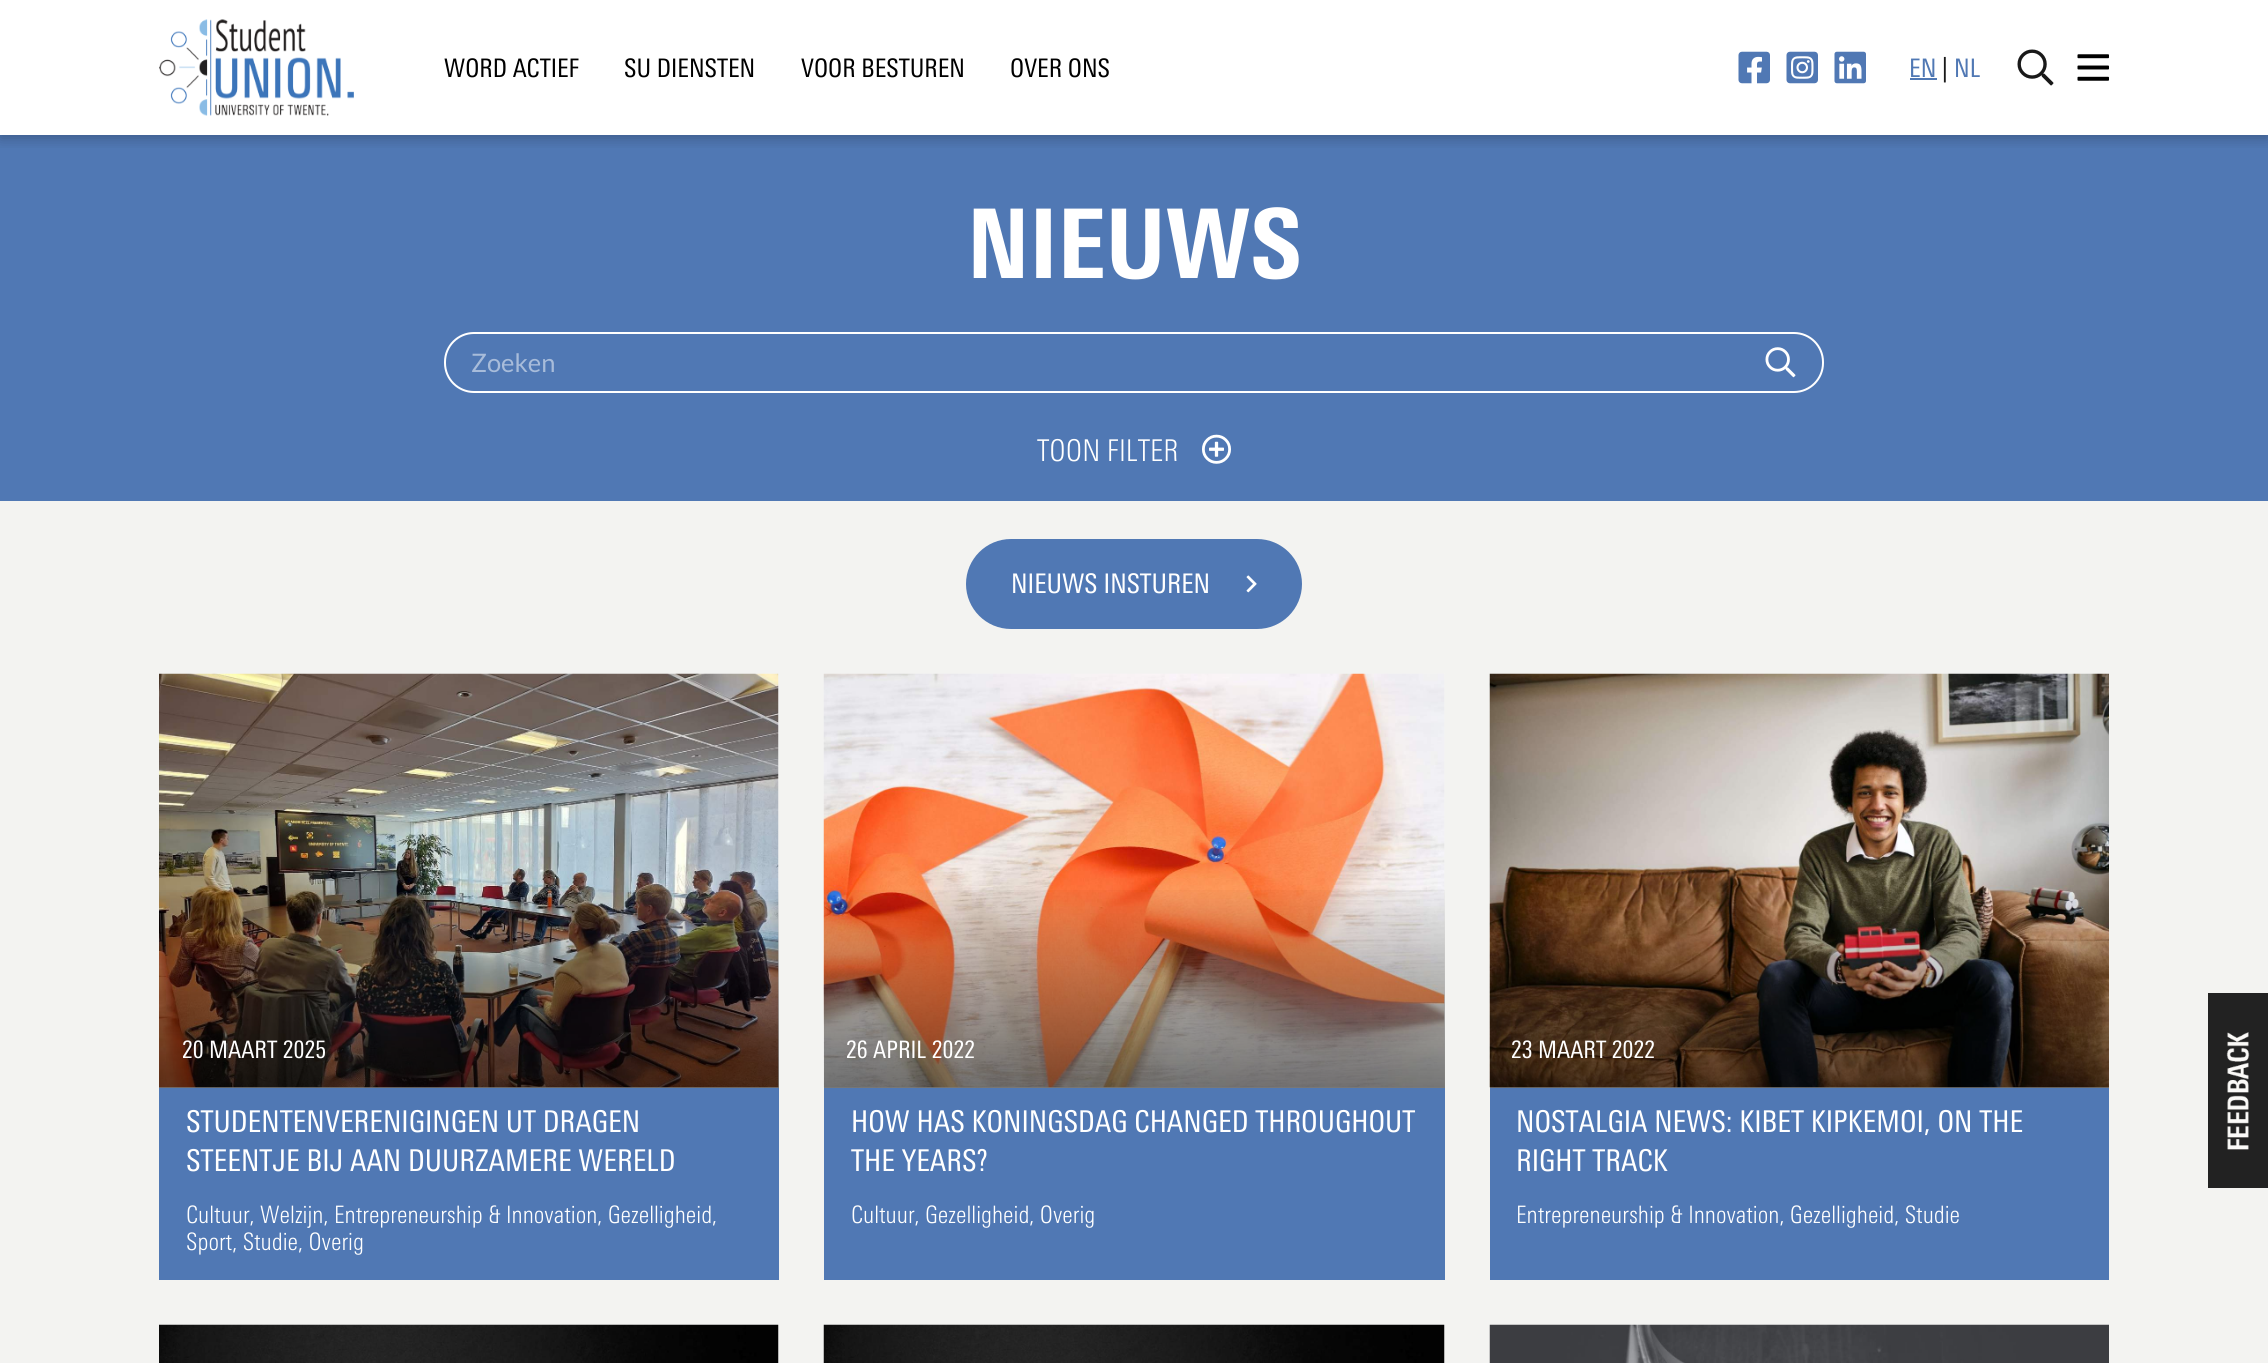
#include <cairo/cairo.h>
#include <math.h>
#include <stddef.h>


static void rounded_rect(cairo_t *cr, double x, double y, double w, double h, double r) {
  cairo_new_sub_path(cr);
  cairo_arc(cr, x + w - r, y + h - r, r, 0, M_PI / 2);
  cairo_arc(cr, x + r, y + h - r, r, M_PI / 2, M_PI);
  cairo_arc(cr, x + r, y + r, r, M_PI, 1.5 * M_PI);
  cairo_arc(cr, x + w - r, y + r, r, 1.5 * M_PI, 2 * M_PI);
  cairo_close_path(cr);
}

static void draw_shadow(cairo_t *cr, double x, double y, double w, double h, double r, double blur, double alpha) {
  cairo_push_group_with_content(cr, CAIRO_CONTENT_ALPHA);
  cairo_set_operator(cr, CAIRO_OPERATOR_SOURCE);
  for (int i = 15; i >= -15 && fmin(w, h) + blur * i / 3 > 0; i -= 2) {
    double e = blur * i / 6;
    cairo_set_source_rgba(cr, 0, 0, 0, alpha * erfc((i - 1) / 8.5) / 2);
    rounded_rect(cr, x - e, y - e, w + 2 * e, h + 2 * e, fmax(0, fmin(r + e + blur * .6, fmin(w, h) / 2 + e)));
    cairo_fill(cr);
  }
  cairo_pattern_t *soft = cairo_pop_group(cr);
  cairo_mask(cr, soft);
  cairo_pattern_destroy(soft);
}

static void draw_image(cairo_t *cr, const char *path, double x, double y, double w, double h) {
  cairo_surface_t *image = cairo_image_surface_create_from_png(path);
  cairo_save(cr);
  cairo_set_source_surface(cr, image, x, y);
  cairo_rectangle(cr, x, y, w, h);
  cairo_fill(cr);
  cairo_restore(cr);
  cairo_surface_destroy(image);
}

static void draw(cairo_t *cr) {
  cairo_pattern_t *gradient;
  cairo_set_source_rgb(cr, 1, 1, 1);
  cairo_paint(cr);
  cairo_set_source_rgb(cr, 80 / 255.0, 120 / 255.0, 180 / 255.0);
  cairo_rectangle(cr, 0, 135, 2268, 366);
  cairo_fill(cr);
  cairo_save(cr);
  cairo_rectangle(cr, 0, 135, 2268, 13);
  cairo_clip(cr);
  cairo_set_source_rgb(cr, 0, 0, 0);
  draw_shadow(cr, 0, 3, 2268, 135, 0, 7, 0.25);
  cairo_restore(cr);
  draw_image(cr, "images/1.png", 159, 19, 195, 97);
  draw_image(cr, "images/2.png", 1738, 51, 32, 33);
  draw_image(cr, "images/3.png", 1786, 51, 32, 33);
  draw_image(cr, "images/4.png", 1834, 51, 32, 33);
  cairo_rectangle(cr, 1910, 78, 27, 2);
  cairo_fill(cr);
  draw_image(cr, "images/5.png", 2017, 49, 37, 37);
  draw_image(cr, "images/6.png", 2077, 54, 32, 27);
  cairo_set_source_rgb(cr, 243 / 255.0, 243 / 255.0, 241 / 255.0);
  cairo_rectangle(cr, 0, 501, 2268, 862);
  cairo_fill(cr);
  rounded_rect(cr, 445, 333, 1378, 59, 29);
  cairo_set_source_rgb(cr, 1, 1, 1);
  cairo_stroke(cr);
  draw_image(cr, "images/7.png", 1765, 347, 31, 31);
  draw_image(cr, "images/8.png", 1202, 434, 29, 30);
  cairo_set_source_rgb(cr, 80 / 255.0, 120 / 255.0, 180 / 255.0);
  rounded_rect(cr, 966, 539, 336, 90, 45);
  cairo_fill(cr);
  draw_image(cr, "images/9.png", 1246, 575, 11, 18);
  draw_image(cr, "images/10.png", 159, 673, 620, 415);
  gradient = cairo_pattern_create_linear(469, 881, 469, 1088);
  cairo_pattern_add_color_stop_rgba(gradient, 0, 0, 0, 0, 0);
  cairo_pattern_add_color_stop_rgba(gradient, 1, 0, 0, 0, 0.5);
  cairo_set_source(cr, gradient);
  cairo_pattern_destroy(gradient);
  cairo_rectangle(cr, 159, 890, 620, 198);
  cairo_fill(cr);
  cairo_set_source_rgb(cr, 80 / 255.0, 120 / 255.0, 180 / 255.0);
  cairo_rectangle(cr, 159, 1088, 620, 192);
  cairo_fill(cr);
  draw_image(cr, "images/11.png", 823, 673, 622, 415);
  gradient = cairo_pattern_create_linear(1134, 881, 1134, 1088);
  cairo_pattern_add_color_stop_rgba(gradient, 0, 0, 0, 0, 0);
  cairo_pattern_add_color_stop_rgba(gradient, 1, 0, 0, 0, 0.5);
  cairo_set_source(cr, gradient);
  cairo_pattern_destroy(gradient);
  cairo_rectangle(cr, 824, 890, 621, 198);
  cairo_fill(cr);
  cairo_set_source_rgb(cr, 80 / 255.0, 120 / 255.0, 180 / 255.0);
  cairo_rectangle(cr, 824, 1088, 621, 192);
  cairo_fill(cr);
  draw_image(cr, "images/12.png", 1489, 673, 620, 415);
  gradient = cairo_pattern_create_linear(1799, 881, 1799, 1088);
  cairo_pattern_add_color_stop_rgba(gradient, 0, 0, 0, 0, 0);
  cairo_pattern_add_color_stop_rgba(gradient, 1, 0, 0, 0, 0.5);
  cairo_set_source(cr, gradient);
  cairo_pattern_destroy(gradient);
  cairo_rectangle(cr, 1490, 890, 619, 198);
  cairo_fill(cr);
  cairo_set_source_rgb(cr, 80 / 255.0, 120 / 255.0, 180 / 255.0);
  cairo_rectangle(cr, 1490, 1088, 619, 192);
  cairo_fill(cr);
  draw_image(cr, "images/13.png", 159, 1324, 620, 39);
  draw_image(cr, "images/14.png", 823, 1324, 622, 39);
  draw_image(cr, "images/15.png", 1489, 1324, 620, 39);
  draw_image(cr, "images/16.png", 2208, 993, 60, 195);
  cairo_select_font_face(cr, "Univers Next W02", CAIRO_FONT_SLANT_NORMAL, CAIRO_FONT_WEIGHT_NORMAL);
  cairo_set_font_size(cr, 25.5);
  cairo_set_source_rgb(cr, 0, 0, 0);
  cairo_move_to(cr, 444, 77);
  cairo_show_text(cr, "WORD ACTIEF");
  cairo_move_to(cr, 624, 77);
  cairo_show_text(cr, "SU DIENSTEN");
  cairo_move_to(cr, 801, 77);
  cairo_show_text(cr, "VOOR BESTUREN");
  cairo_move_to(cr, 1010, 77);
  cairo_show_text(cr, "OVER ONS");
  cairo_set_source_rgb(cr, 80 / 255.0, 120 / 255.0, 180 / 255.0);
  cairo_move_to(cr, 1909, 77);
  cairo_show_text(cr, "EN");
  cairo_set_source_rgb(cr, 25 / 255.0, 25 / 255.0, 25 / 255.0);
  cairo_move_to(cr, 1942, 77);
  cairo_show_text(cr, "|");
  cairo_set_source_rgb(cr, 80 / 255.0, 120 / 255.0, 180 / 255.0);
  cairo_move_to(cr, 1954, 77);
  cairo_show_text(cr, "NL");
  cairo_select_font_face(cr, "Univers Next W02 Black", CAIRO_FONT_SLANT_NORMAL, CAIRO_FONT_WEIGHT_NORMAL);
  cairo_set_font_size(cr, 96);
  cairo_set_source_rgb(cr, 1, 1, 1);
  cairo_move_to(cr, 967, 278);
  cairo_show_text(cr, "NIEUWS");
  cairo_select_font_face(cr, "Lato", CAIRO_FONT_SLANT_NORMAL, CAIRO_FONT_WEIGHT_NORMAL);
  cairo_set_font_size(cr, 25.5);
  cairo_set_source_rgb(cr, 168 / 255.0, 188 / 255.0, 218 / 255.0);
  cairo_move_to(cr, 471, 372);
  cairo_show_text(cr, "Zoeken");
  cairo_select_font_face(cr, "Univers Next W02 Light", CAIRO_FONT_SLANT_NORMAL, CAIRO_FONT_WEIGHT_NORMAL);
  cairo_set_font_size(cr, 30);
  cairo_set_source_rgb(cr, 1, 1, 1);
  cairo_move_to(cr, 1037, 461);
  cairo_show_text(cr, "TOON FILTER");
  cairo_select_font_face(cr, "Univers Next W02", CAIRO_FONT_SLANT_NORMAL, CAIRO_FONT_WEIGHT_NORMAL);
  cairo_set_font_size(cr, 27);
  cairo_move_to(cr, 1011, 593);
  cairo_show_text(cr, "NIEUWS INSTUREN");
  cairo_set_font_size(cr, 24);
  cairo_move_to(cr, 182, 1058);
  cairo_show_text(cr, "20 MAART 2025");
  cairo_set_font_size(cr, 30);
  cairo_move_to(cr, 186, 1132);
  cairo_show_text(cr, "STUDENTENVERENIGINGEN UT DRAGEN");
  cairo_move_to(cr, 186, 1171);
  cairo_show_text(cr, "STEENTJE BIJ AAN DUURZAMERE WERELD");
  cairo_select_font_face(cr, "Univers Next W02 Light", CAIRO_FONT_SLANT_NORMAL, CAIRO_FONT_WEIGHT_NORMAL);
  cairo_set_font_size(cr, 24);
  cairo_move_to(cr, 186, 1223);
  cairo_show_text(cr, "Cultuur, Welzijn, Entrepreneurship & Innovation, Gezelligheid,");
  cairo_move_to(cr, 186, 1250);
  cairo_show_text(cr, "Sport, Studie, Overig");
  cairo_select_font_face(cr, "Univers Next W02", CAIRO_FONT_SLANT_NORMAL, CAIRO_FONT_WEIGHT_NORMAL);
  cairo_move_to(cr, 846, 1058);
  cairo_show_text(cr, "26 APRIL 2022");
  cairo_set_font_size(cr, 30);
  cairo_move_to(cr, 851, 1132);
  cairo_show_text(cr, "HOW HAS KONINGSDAG CHANGED THROUGHOUT");
  cairo_move_to(cr, 851, 1171);
  cairo_show_text(cr, "THE YEARS?");
  cairo_select_font_face(cr, "Univers Next W02 Light", CAIRO_FONT_SLANT_NORMAL, CAIRO_FONT_WEIGHT_NORMAL);
  cairo_set_font_size(cr, 24);
  cairo_move_to(cr, 851, 1223);
  cairo_show_text(cr, "Cultuur, Gezelligheid, Overig");
  cairo_select_font_face(cr, "Univers Next W02", CAIRO_FONT_SLANT_NORMAL, CAIRO_FONT_WEIGHT_NORMAL);
  cairo_move_to(cr, 1511, 1058);
  cairo_show_text(cr, "23 MAART 2022");
  cairo_set_font_size(cr, 30);
  cairo_move_to(cr, 1516, 1132);
  cairo_show_text(cr, "NOSTALGIA NEWS: KIBET KIPKEMOI, ON THE");
  cairo_move_to(cr, 1516, 1171);
  cairo_show_text(cr, "RIGHT TRACK");
  cairo_select_font_face(cr, "Univers Next W02 Light", CAIRO_FONT_SLANT_NORMAL, CAIRO_FONT_WEIGHT_NORMAL);
  cairo_set_font_size(cr, 24);
  cairo_move_to(cr, 1516, 1223);
  cairo_show_text(cr, "Entrepreneurship & Innovation, Gezelligheid, Studie");
}

int main(void) {
  cairo_surface_t *surface = cairo_image_surface_create(CAIRO_FORMAT_RGB24, 2268, 1363);
  cairo_t *cr = cairo_create(surface);
  cairo_font_options_t *options = cairo_font_options_create();
  cairo_font_options_set_hint_metrics(options, CAIRO_HINT_METRICS_OFF);
  cairo_font_options_set_hint_style(options, CAIRO_HINT_STYLE_NONE);
  cairo_set_font_options(cr, options);
  cairo_set_miter_limit(cr, 4);
  draw(cr);
  cairo_surface_write_to_png(surface, "out.png");
  cairo_font_options_destroy(options);
  cairo_destroy(cr);
  cairo_surface_destroy(surface);
  return 0;
}
